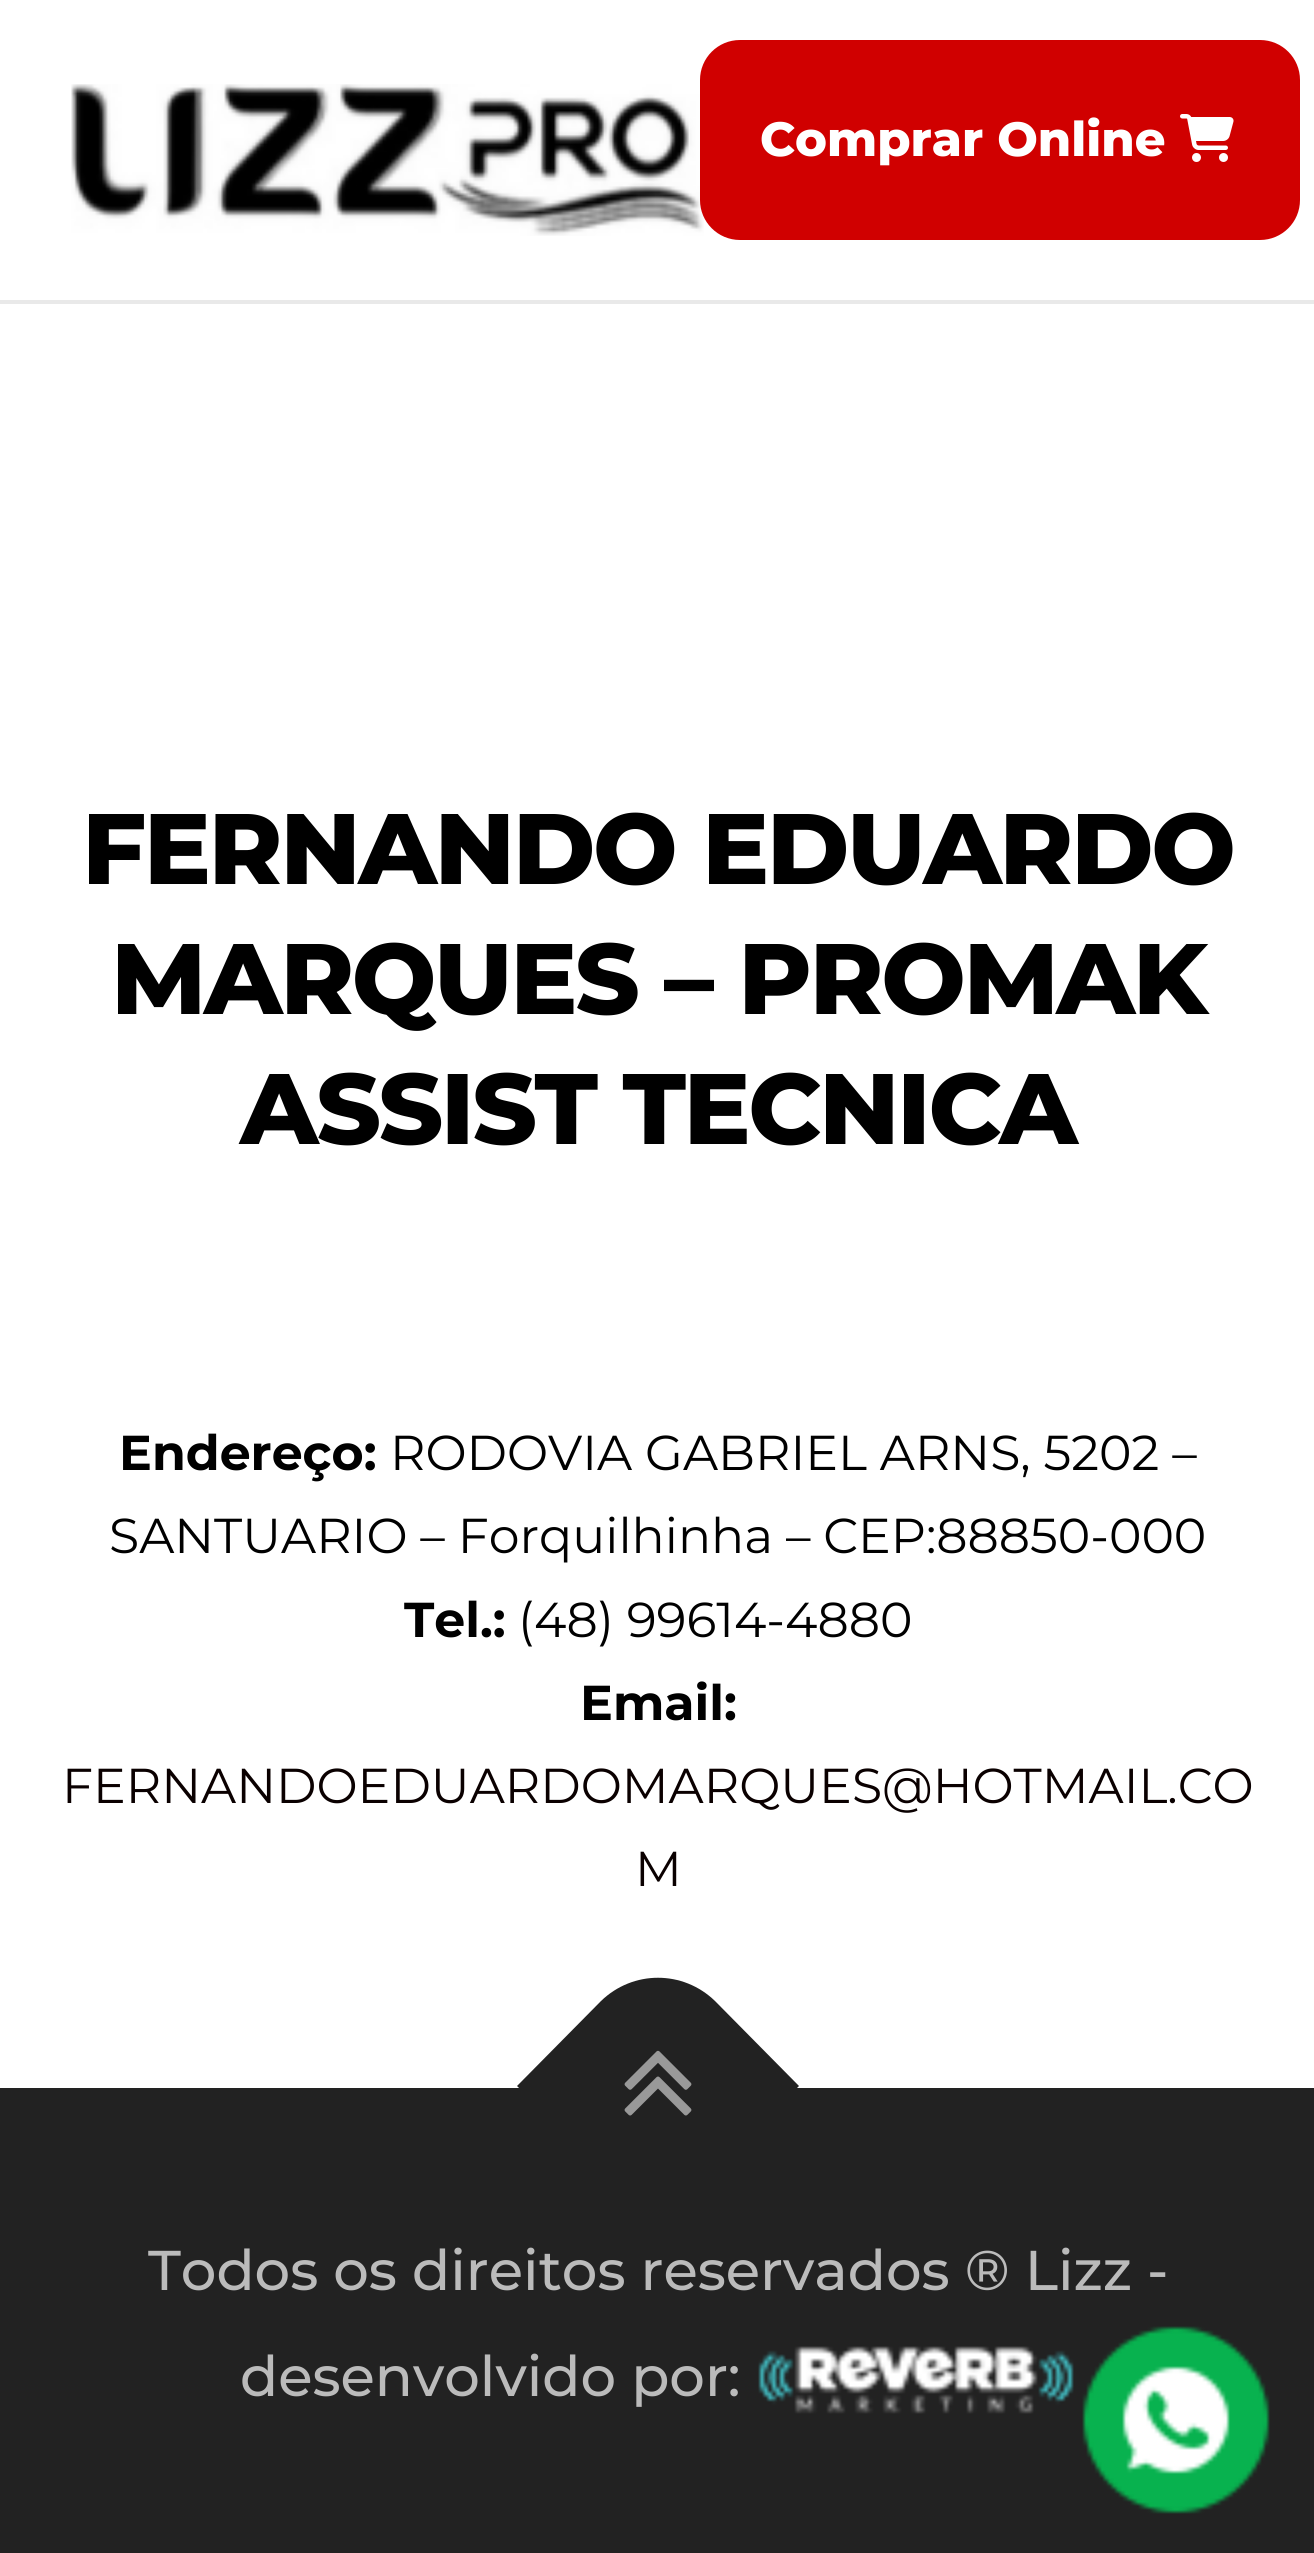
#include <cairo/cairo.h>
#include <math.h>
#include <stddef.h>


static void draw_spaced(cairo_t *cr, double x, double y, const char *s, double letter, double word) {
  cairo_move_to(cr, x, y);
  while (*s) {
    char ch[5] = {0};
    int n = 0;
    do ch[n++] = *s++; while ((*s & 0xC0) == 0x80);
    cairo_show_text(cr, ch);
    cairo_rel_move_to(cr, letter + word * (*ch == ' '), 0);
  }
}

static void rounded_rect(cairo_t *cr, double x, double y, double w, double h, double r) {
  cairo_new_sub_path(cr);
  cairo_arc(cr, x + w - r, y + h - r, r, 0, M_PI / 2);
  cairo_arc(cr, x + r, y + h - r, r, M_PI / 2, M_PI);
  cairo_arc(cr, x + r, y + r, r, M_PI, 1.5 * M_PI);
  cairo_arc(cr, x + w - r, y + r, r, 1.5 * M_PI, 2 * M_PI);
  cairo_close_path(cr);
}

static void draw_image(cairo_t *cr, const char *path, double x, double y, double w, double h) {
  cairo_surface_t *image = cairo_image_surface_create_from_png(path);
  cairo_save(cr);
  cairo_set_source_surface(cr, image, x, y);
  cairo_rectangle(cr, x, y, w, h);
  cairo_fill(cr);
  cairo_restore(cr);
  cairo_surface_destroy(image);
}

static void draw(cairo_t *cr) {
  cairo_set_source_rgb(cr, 1, 1, 1);
  cairo_paint(cr);
  draw_image(cr, "images/2.png", 71, 84, 633, 152);
  cairo_set_source_rgb(cr, 208 / 255.0, 0, 0);
  rounded_rect(cr, 700, 40, 600, 200, 40);
  cairo_fill(cr);
  draw_image(cr, "images/1.png", 1180, 114, 54, 48);
  cairo_set_source_rgb(cr, 233 / 255.0, 233 / 255.0, 233 / 255.0);
  cairo_rectangle(cr, 0, 300, 1314, 4);
  cairo_fill(cr);
  cairo_set_source_rgb(cr, 34 / 255.0, 34 / 255.0, 34 / 255.0);
  cairo_rectangle(cr, 0, 2088, 1314, 465);
  cairo_fill(cr);
  cairo_new_path(cr);
  cairo_move_to(cr, 517, 2086);
  cairo_line_to(cr, 601, 2001);
  cairo_curve_to(cr, 633, 1970, 683, 1970, 715, 2001);
  cairo_line_to(cr, 799, 2086);
  cairo_line_to(cr, 658, 2227);
  cairo_close_path(cr);
  cairo_fill(cr);
  draw_image(cr, "images/3.png", 624, 2050, 68, 66);
  draw_image(cr, "images/4.png", 758, 2346, 316, 68);
  draw_image(cr, "images/5.png", 1082, 2326, 188, 188);
  cairo_select_font_face(cr, "Montserrat ExtraBold", CAIRO_FONT_SLANT_NORMAL, CAIRO_FONT_WEIGHT_NORMAL);
  cairo_set_font_size(cr, 48);
  cairo_set_source_rgb(cr, 1, 1, 1);
  cairo_move_to(cr, 760, 156);
  cairo_show_text(cr, "Comprar Online");
  cairo_set_font_size(cr, 100);
  cairo_set_source_rgb(cr, 0, 0, 0);
  draw_spaced(cr, 82, 884, "FERNANDO EDUARDO", -2.4, 0);
  draw_spaced(cr, 111, 1014, "MARQUES – PROMAK", -2.4, 0);
  draw_spaced(cr, 240, 1144, "ASSIST TECNICA", -2.4, 0);
  cairo_select_font_face(cr, "Montserrat", CAIRO_FONT_SLANT_NORMAL, CAIRO_FONT_WEIGHT_BOLD);
  cairo_set_font_size(cr, 49);
  cairo_move_to(cr, 119, 1470);
  cairo_show_text(cr, "Endereço:");
  cairo_select_font_face(cr, "Montserrat", CAIRO_FONT_SLANT_NORMAL, CAIRO_FONT_WEIGHT_NORMAL);
  cairo_move_to(cr, 390, 1470);
  cairo_show_text(cr, "RODOVIA GABRIEL ARNS, 5202 –");
  cairo_move_to(cr, 109, 1553);
  cairo_show_text(cr, "SANTUARIO – Forquilhinha – CEP:88850-000");
  cairo_select_font_face(cr, "Montserrat", CAIRO_FONT_SLANT_NORMAL, CAIRO_FONT_WEIGHT_BOLD);
  cairo_move_to(cr, 404, 1637);
  cairo_show_text(cr, "Tel.:");
  cairo_select_font_face(cr, "Montserrat", CAIRO_FONT_SLANT_NORMAL, CAIRO_FONT_WEIGHT_NORMAL);
  cairo_move_to(cr, 518, 1637);
  cairo_show_text(cr, "(48) 99614-4880");
  cairo_select_font_face(cr, "Montserrat", CAIRO_FONT_SLANT_NORMAL, CAIRO_FONT_WEIGHT_BOLD);
  cairo_move_to(cr, 580, 1720);
  cairo_show_text(cr, "Email:");
  cairo_select_font_face(cr, "Montserrat", CAIRO_FONT_SLANT_NORMAL, CAIRO_FONT_WEIGHT_NORMAL);
  cairo_set_source_rgb(cr, 10 / 255.0, 0, 0);
  cairo_move_to(cr, 62, 1803);
  cairo_show_text(cr, "FERNANDOEDUARDOMARQUES@HOTMAIL.CO");
  cairo_move_to(cr, 635, 1886);
  cairo_show_text(cr, "M");
  cairo_select_font_face(cr, "Montserrat Medium", CAIRO_FONT_SLANT_NORMAL, CAIRO_FONT_WEIGHT_NORMAL);
  cairo_set_font_size(cr, 56);
  cairo_set_source_rgb(cr, 187 / 255.0, 187 / 255.0, 187 / 255.0);
  cairo_move_to(cr, 148, 2290);
  cairo_show_text(cr, "Todos os direitos reservados ® Lizz -");
  cairo_move_to(cr, 240, 2396);
  cairo_show_text(cr, "desenvolvido por:");
}

int main(void) {
  cairo_surface_t *surface = cairo_image_surface_create(CAIRO_FORMAT_RGB24, 1314, 2553);
  cairo_t *cr = cairo_create(surface);
  cairo_font_options_t *options = cairo_font_options_create();
  cairo_font_options_set_hint_metrics(options, CAIRO_HINT_METRICS_OFF);
  cairo_font_options_set_hint_style(options, CAIRO_HINT_STYLE_NONE);
  cairo_set_font_options(cr, options);
  cairo_set_miter_limit(cr, 4);
  draw(cr);
  cairo_surface_write_to_png(surface, "out.png");
  cairo_font_options_destroy(options);
  cairo_destroy(cr);
  cairo_surface_destroy(surface);
  return 0;
}
